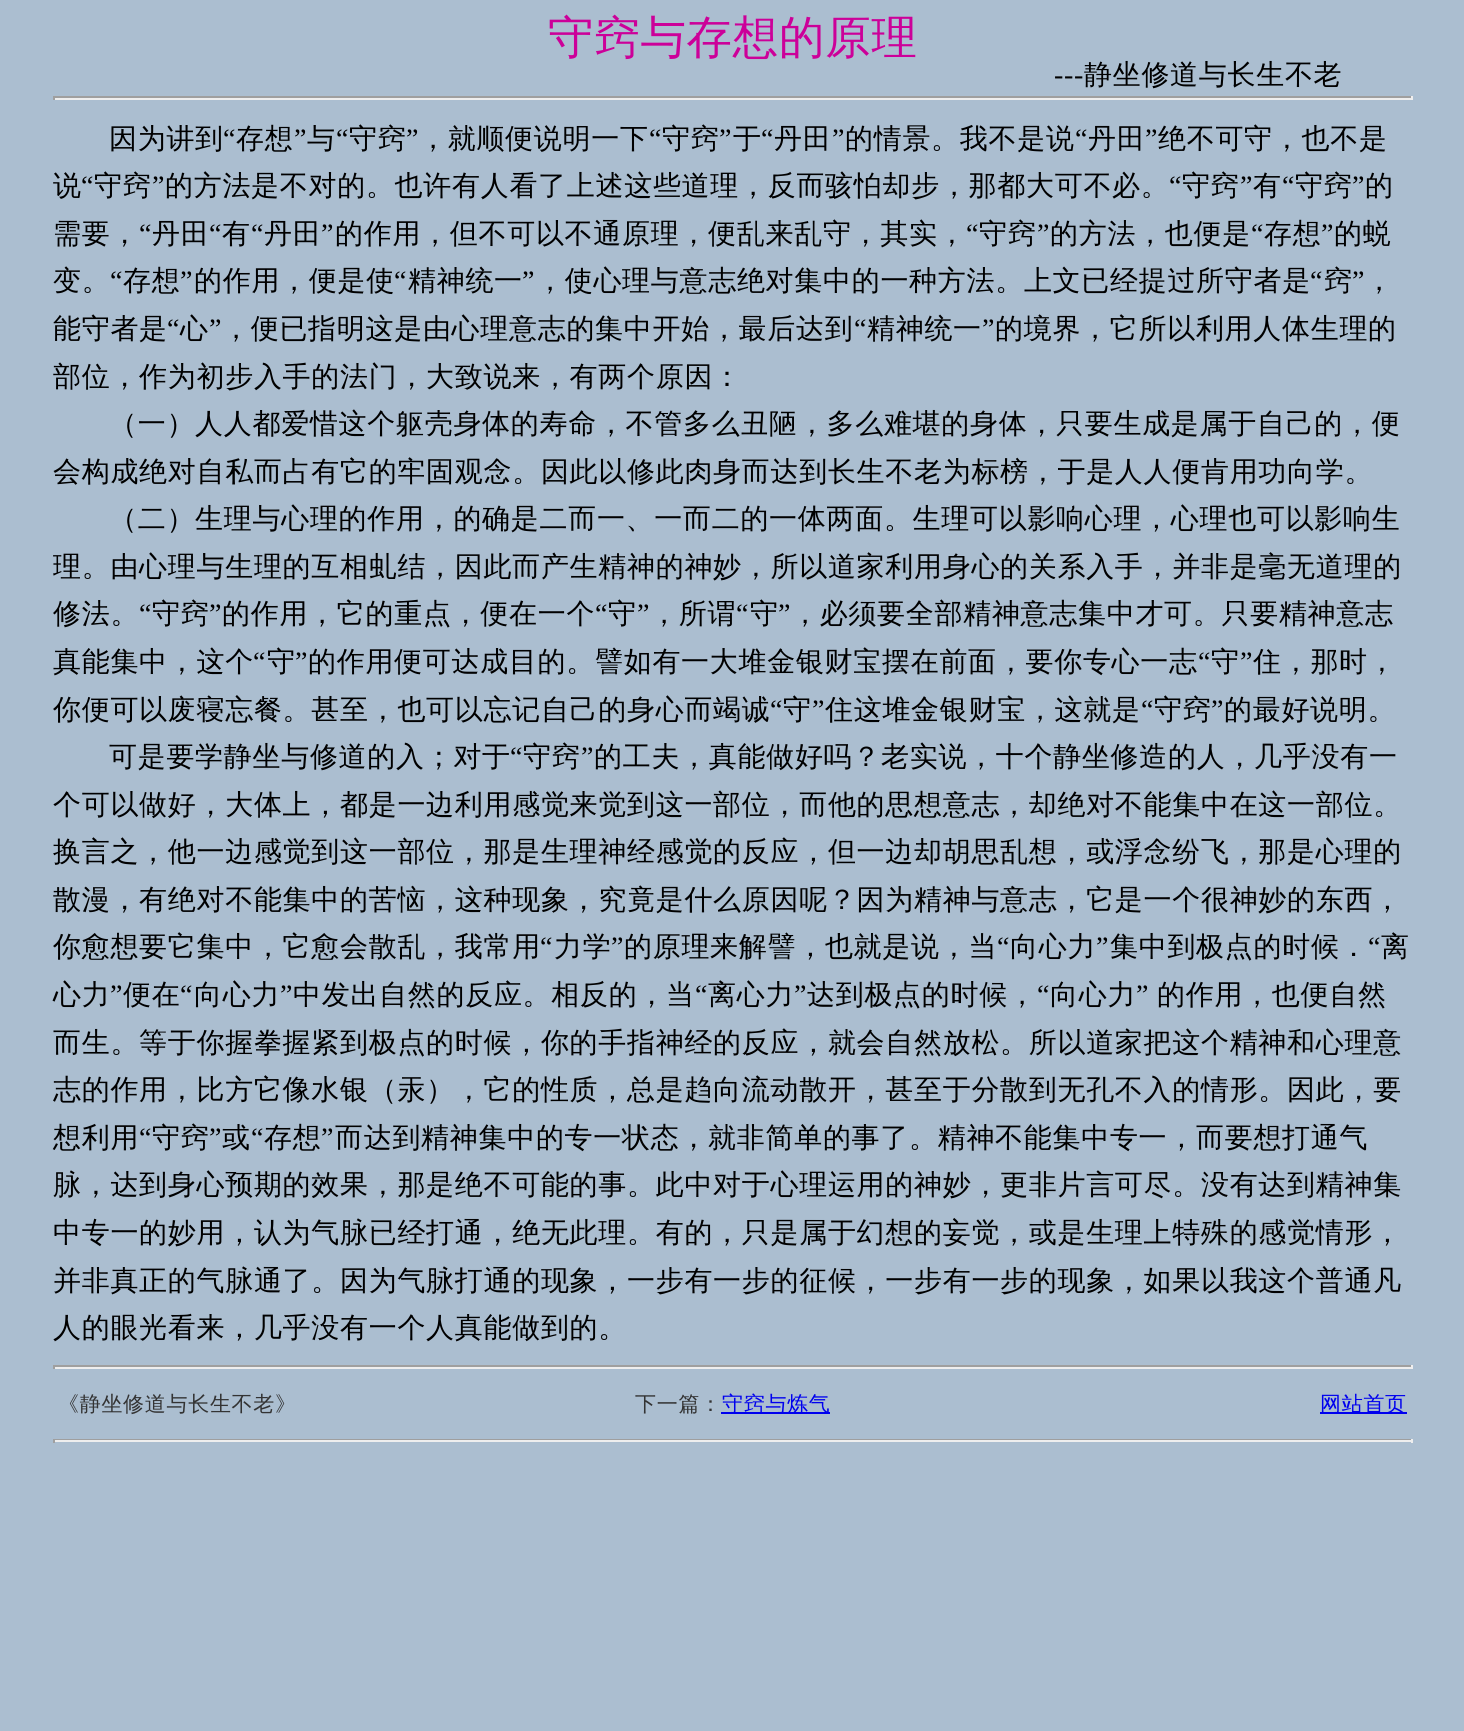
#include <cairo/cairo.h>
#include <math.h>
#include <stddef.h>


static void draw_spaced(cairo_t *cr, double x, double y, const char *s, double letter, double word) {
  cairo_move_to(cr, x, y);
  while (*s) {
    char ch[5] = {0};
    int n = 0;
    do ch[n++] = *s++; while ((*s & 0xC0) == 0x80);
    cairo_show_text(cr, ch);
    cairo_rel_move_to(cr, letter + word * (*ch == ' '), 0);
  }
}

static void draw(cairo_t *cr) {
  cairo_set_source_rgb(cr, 171 / 255.0, 190 / 255.0, 208 / 255.0);
  cairo_paint(cr);
  cairo_set_source_rgb(cr, 159 / 255.0, 159 / 255.0, 159 / 255.0);
  cairo_rectangle(cr, 53, 96, 1359, 2);
  cairo_fill(cr);
  cairo_set_source_rgb(cr, 238 / 255.0, 238 / 255.0, 238 / 255.0);
  cairo_rectangle(cr, 1411, 96, 2, 4);
  cairo_fill(cr);
  cairo_rectangle(cr, 53, 98, 1359, 2);
  cairo_fill(cr);
  cairo_set_source_rgb(cr, 159 / 255.0, 159 / 255.0, 159 / 255.0);
  cairo_rectangle(cr, 53, 96, 2, 4);
  cairo_fill(cr);
  cairo_rectangle(cr, 53, 1365, 1359, 2);
  cairo_fill(cr);
  cairo_set_source_rgb(cr, 238 / 255.0, 238 / 255.0, 238 / 255.0);
  cairo_rectangle(cr, 1411, 1365, 2, 4);
  cairo_fill(cr);
  cairo_rectangle(cr, 53, 1367, 1359, 2);
  cairo_fill(cr);
  cairo_set_source_rgb(cr, 159 / 255.0, 159 / 255.0, 159 / 255.0);
  cairo_rectangle(cr, 53, 1365, 2, 4);
  cairo_fill(cr);
  cairo_set_source_rgb(cr, 0, 0, 238 / 255.0);
  cairo_rectangle(cr, 721, 1412, 109, 2);
  cairo_fill(cr);
  cairo_rectangle(cr, 1320, 1412, 87, 2);
  cairo_fill(cr);
  cairo_set_source_rgb(cr, 159 / 255.0, 159 / 255.0, 159 / 255.0);
  cairo_rectangle(cr, 53, 1439, 1359, 1);
  cairo_fill(cr);
  cairo_set_source_rgb(cr, 238 / 255.0, 238 / 255.0, 238 / 255.0);
  cairo_rectangle(cr, 1411, 1439, 2, 4);
  cairo_fill(cr);
  cairo_rectangle(cr, 53, 1440, 1359, 2);
  cairo_fill(cr);
  cairo_set_source_rgb(cr, 159 / 255.0, 159 / 255.0, 159 / 255.0);
  cairo_rectangle(cr, 53, 1439, 2, 4);
  cairo_fill(cr);
  cairo_select_font_face(cr, "WenQuanYi Zen Hei Medium", CAIRO_FONT_SLANT_NORMAL, CAIRO_FONT_WEIGHT_NORMAL);
  cairo_set_font_size(cr, 45.5);
  cairo_set_source_rgb(cr, 204 / 255.0, 0, 153 / 255.0);
  draw_spaced(cr, 548, 53, "守窍与存想的原理", 0.7, 0);
  cairo_select_font_face(cr, "Liberation Serif", CAIRO_FONT_SLANT_NORMAL, CAIRO_FONT_WEIGHT_NORMAL);
  cairo_set_font_size(cr, 28);
  cairo_set_source_rgb(cr, 0, 0, 0);
  draw_spaced(cr, 1054, 84, "---", 0.7, 0);
  cairo_select_font_face(cr, "WenQuanYi Zen Hei Medium", CAIRO_FONT_SLANT_NORMAL, CAIRO_FONT_WEIGHT_NORMAL);
  draw_spaced(cr, 1084, 84, "静坐修道与长生不老", 0.7, 0);
  draw_spaced(cr, 109, 148, "因为讲到", 0.7, 0);
  cairo_select_font_face(cr, "Liberation Serif", CAIRO_FONT_SLANT_NORMAL, CAIRO_FONT_WEIGHT_NORMAL);
  draw_spaced(cr, 223, 148, "“", 0.7, 0);
  cairo_select_font_face(cr, "WenQuanYi Zen Hei Medium", CAIRO_FONT_SLANT_NORMAL, CAIRO_FONT_WEIGHT_NORMAL);
  draw_spaced(cr, 236, 148, "存想", 0.7, 0);
  cairo_select_font_face(cr, "Liberation Serif", CAIRO_FONT_SLANT_NORMAL, CAIRO_FONT_WEIGHT_NORMAL);
  draw_spaced(cr, 294, 148, "”", 0.7, 0);
  cairo_select_font_face(cr, "WenQuanYi Zen Hei Medium", CAIRO_FONT_SLANT_NORMAL, CAIRO_FONT_WEIGHT_NORMAL);
  draw_spaced(cr, 307, 148, "与", 0.7, 0);
  cairo_select_font_face(cr, "Liberation Serif", CAIRO_FONT_SLANT_NORMAL, CAIRO_FONT_WEIGHT_NORMAL);
  draw_spaced(cr, 336, 148, "“", 0.7, 0);
  cairo_select_font_face(cr, "WenQuanYi Zen Hei Medium", CAIRO_FONT_SLANT_NORMAL, CAIRO_FONT_WEIGHT_NORMAL);
  draw_spaced(cr, 349, 148, "守窍", 0.7, 0);
  cairo_select_font_face(cr, "Liberation Serif", CAIRO_FONT_SLANT_NORMAL, CAIRO_FONT_WEIGHT_NORMAL);
  draw_spaced(cr, 406, 148, "”", 0.7, 0);
  cairo_select_font_face(cr, "WenQuanYi Zen Hei Medium", CAIRO_FONT_SLANT_NORMAL, CAIRO_FONT_WEIGHT_NORMAL);
  draw_spaced(cr, 419, 148, "，就顺便说明一下", 0.7, 0);
  cairo_select_font_face(cr, "Liberation Serif", CAIRO_FONT_SLANT_NORMAL, CAIRO_FONT_WEIGHT_NORMAL);
  draw_spaced(cr, 649, 148, "“", 0.7, 0);
  cairo_select_font_face(cr, "WenQuanYi Zen Hei Medium", CAIRO_FONT_SLANT_NORMAL, CAIRO_FONT_WEIGHT_NORMAL);
  draw_spaced(cr, 662, 148, "守窍", 0.7, 0);
  cairo_select_font_face(cr, "Liberation Serif", CAIRO_FONT_SLANT_NORMAL, CAIRO_FONT_WEIGHT_NORMAL);
  draw_spaced(cr, 719, 148, "”", 0.7, 0);
  cairo_select_font_face(cr, "WenQuanYi Zen Hei Medium", CAIRO_FONT_SLANT_NORMAL, CAIRO_FONT_WEIGHT_NORMAL);
  draw_spaced(cr, 733, 148, "于", 0.7, 0);
  cairo_select_font_face(cr, "Liberation Serif", CAIRO_FONT_SLANT_NORMAL, CAIRO_FONT_WEIGHT_NORMAL);
  draw_spaced(cr, 761, 148, "“", 0.7, 0);
  cairo_select_font_face(cr, "WenQuanYi Zen Hei Medium", CAIRO_FONT_SLANT_NORMAL, CAIRO_FONT_WEIGHT_NORMAL);
  draw_spaced(cr, 774, 148, "丹田", 0.7, 0);
  cairo_select_font_face(cr, "Liberation Serif", CAIRO_FONT_SLANT_NORMAL, CAIRO_FONT_WEIGHT_NORMAL);
  draw_spaced(cr, 832, 148, "”", 0.7, 0);
  cairo_select_font_face(cr, "WenQuanYi Zen Hei Medium", CAIRO_FONT_SLANT_NORMAL, CAIRO_FONT_WEIGHT_NORMAL);
  draw_spaced(cr, 845, 148, "的情景。我不是说", 0.7, 0);
  cairo_select_font_face(cr, "Liberation Serif", CAIRO_FONT_SLANT_NORMAL, CAIRO_FONT_WEIGHT_NORMAL);
  draw_spaced(cr, 1075, 148, "“", 0.7, 0);
  cairo_select_font_face(cr, "WenQuanYi Zen Hei Medium", CAIRO_FONT_SLANT_NORMAL, CAIRO_FONT_WEIGHT_NORMAL);
  draw_spaced(cr, 1088, 148, "丹田", 0.7, 0);
  cairo_select_font_face(cr, "Liberation Serif", CAIRO_FONT_SLANT_NORMAL, CAIRO_FONT_WEIGHT_NORMAL);
  draw_spaced(cr, 1145, 148, "”", 0.7, 0);
  cairo_select_font_face(cr, "WenQuanYi Zen Hei Medium", CAIRO_FONT_SLANT_NORMAL, CAIRO_FONT_WEIGHT_NORMAL);
  draw_spaced(cr, 1158, 148, "绝不可守，也不是", 0.7, 0);
  draw_spaced(cr, 53, 195, "说", 0.7, 0);
  cairo_select_font_face(cr, "Liberation Serif", CAIRO_FONT_SLANT_NORMAL, CAIRO_FONT_WEIGHT_NORMAL);
  draw_spaced(cr, 81, 195, "“", 0.7, 0);
  cairo_select_font_face(cr, "WenQuanYi Zen Hei Medium", CAIRO_FONT_SLANT_NORMAL, CAIRO_FONT_WEIGHT_NORMAL);
  draw_spaced(cr, 94, 195, "守窍", 0.7, 0);
  cairo_select_font_face(cr, "Liberation Serif", CAIRO_FONT_SLANT_NORMAL, CAIRO_FONT_WEIGHT_NORMAL);
  draw_spaced(cr, 152, 195, "”", 0.7, 0);
  cairo_select_font_face(cr, "WenQuanYi Zen Hei Medium", CAIRO_FONT_SLANT_NORMAL, CAIRO_FONT_WEIGHT_NORMAL);
  draw_spaced(cr, 165, 195, "的方法是不对的。也许有人看了上述这些道理，反而骇怕却步，那都大可不必。", 0.7, 0);
  cairo_select_font_face(cr, "Liberation Serif", CAIRO_FONT_SLANT_NORMAL, CAIRO_FONT_WEIGHT_NORMAL);
  draw_spaced(cr, 1169, 195, "“", 0.7, 0);
  cairo_select_font_face(cr, "WenQuanYi Zen Hei Medium", CAIRO_FONT_SLANT_NORMAL, CAIRO_FONT_WEIGHT_NORMAL);
  draw_spaced(cr, 1182, 195, "守窍", 0.7, 0);
  cairo_select_font_face(cr, "Liberation Serif", CAIRO_FONT_SLANT_NORMAL, CAIRO_FONT_WEIGHT_NORMAL);
  draw_spaced(cr, 1240, 195, "”", 0.7, 0);
  cairo_select_font_face(cr, "WenQuanYi Zen Hei Medium", CAIRO_FONT_SLANT_NORMAL, CAIRO_FONT_WEIGHT_NORMAL);
  draw_spaced(cr, 1253, 195, "有", 0.7, 0);
  cairo_select_font_face(cr, "Liberation Serif", CAIRO_FONT_SLANT_NORMAL, CAIRO_FONT_WEIGHT_NORMAL);
  draw_spaced(cr, 1282, 195, "“", 0.7, 0);
  cairo_select_font_face(cr, "WenQuanYi Zen Hei Medium", CAIRO_FONT_SLANT_NORMAL, CAIRO_FONT_WEIGHT_NORMAL);
  draw_spaced(cr, 1295, 195, "守窍", 0.7, 0);
  cairo_select_font_face(cr, "Liberation Serif", CAIRO_FONT_SLANT_NORMAL, CAIRO_FONT_WEIGHT_NORMAL);
  draw_spaced(cr, 1352, 195, "”", 0.7, 0);
  cairo_select_font_face(cr, "WenQuanYi Zen Hei Medium", CAIRO_FONT_SLANT_NORMAL, CAIRO_FONT_WEIGHT_NORMAL);
  draw_spaced(cr, 1365, 195, "的", 0.7, 0);
  draw_spaced(cr, 53, 243, "需要，", 0.7, 0);
  cairo_select_font_face(cr, "Liberation Serif", CAIRO_FONT_SLANT_NORMAL, CAIRO_FONT_WEIGHT_NORMAL);
  draw_spaced(cr, 139, 243, "“", 0.7, 0);
  cairo_select_font_face(cr, "WenQuanYi Zen Hei Medium", CAIRO_FONT_SLANT_NORMAL, CAIRO_FONT_WEIGHT_NORMAL);
  draw_spaced(cr, 152, 243, "丹田", 0.7, 0);
  cairo_select_font_face(cr, "Liberation Serif", CAIRO_FONT_SLANT_NORMAL, CAIRO_FONT_WEIGHT_NORMAL);
  draw_spaced(cr, 209, 243, "“", 0.7, 0);
  cairo_select_font_face(cr, "WenQuanYi Zen Hei Medium", CAIRO_FONT_SLANT_NORMAL, CAIRO_FONT_WEIGHT_NORMAL);
  draw_spaced(cr, 222, 243, "有", 0.7, 0);
  cairo_select_font_face(cr, "Liberation Serif", CAIRO_FONT_SLANT_NORMAL, CAIRO_FONT_WEIGHT_NORMAL);
  draw_spaced(cr, 251, 243, "“", 0.7, 0);
  cairo_select_font_face(cr, "WenQuanYi Zen Hei Medium", CAIRO_FONT_SLANT_NORMAL, CAIRO_FONT_WEIGHT_NORMAL);
  draw_spaced(cr, 264, 243, "丹田", 0.7, 0);
  cairo_select_font_face(cr, "Liberation Serif", CAIRO_FONT_SLANT_NORMAL, CAIRO_FONT_WEIGHT_NORMAL);
  draw_spaced(cr, 321, 243, "”", 0.7, 0);
  cairo_select_font_face(cr, "WenQuanYi Zen Hei Medium", CAIRO_FONT_SLANT_NORMAL, CAIRO_FONT_WEIGHT_NORMAL);
  draw_spaced(cr, 335, 243, "的作用，但不可以不通原理，便乱来乱守，其实，", 0.7, 0);
  cairo_select_font_face(cr, "Liberation Serif", CAIRO_FONT_SLANT_NORMAL, CAIRO_FONT_WEIGHT_NORMAL);
  draw_spaced(cr, 966, 243, "“", 0.7, 0);
  cairo_select_font_face(cr, "WenQuanYi Zen Hei Medium", CAIRO_FONT_SLANT_NORMAL, CAIRO_FONT_WEIGHT_NORMAL);
  draw_spaced(cr, 979, 243, "守窍", 0.7, 0);
  cairo_select_font_face(cr, "Liberation Serif", CAIRO_FONT_SLANT_NORMAL, CAIRO_FONT_WEIGHT_NORMAL);
  draw_spaced(cr, 1037, 243, "”", 0.7, 0);
  cairo_select_font_face(cr, "WenQuanYi Zen Hei Medium", CAIRO_FONT_SLANT_NORMAL, CAIRO_FONT_WEIGHT_NORMAL);
  draw_spaced(cr, 1050, 243, "的方法，也便是", 0.7, 0);
  cairo_select_font_face(cr, "Liberation Serif", CAIRO_FONT_SLANT_NORMAL, CAIRO_FONT_WEIGHT_NORMAL);
  draw_spaced(cr, 1251, 243, "“", 0.7, 0);
  cairo_select_font_face(cr, "WenQuanYi Zen Hei Medium", CAIRO_FONT_SLANT_NORMAL, CAIRO_FONT_WEIGHT_NORMAL);
  draw_spaced(cr, 1264, 243, "存想", 0.7, 0);
  cairo_select_font_face(cr, "Liberation Serif", CAIRO_FONT_SLANT_NORMAL, CAIRO_FONT_WEIGHT_NORMAL);
  draw_spaced(cr, 1321, 243, "”", 0.7, 0);
  cairo_select_font_face(cr, "WenQuanYi Zen Hei Medium", CAIRO_FONT_SLANT_NORMAL, CAIRO_FONT_WEIGHT_NORMAL);
  draw_spaced(cr, 1334, 243, "的蜕", 0.7, 0);
  draw_spaced(cr, 53, 290, "变。", 0.7, 0);
  cairo_select_font_face(cr, "Liberation Serif", CAIRO_FONT_SLANT_NORMAL, CAIRO_FONT_WEIGHT_NORMAL);
  draw_spaced(cr, 110, 290, "“", 0.7, 0);
  cairo_select_font_face(cr, "WenQuanYi Zen Hei Medium", CAIRO_FONT_SLANT_NORMAL, CAIRO_FONT_WEIGHT_NORMAL);
  draw_spaced(cr, 123, 290, "存想", 0.7, 0);
  cairo_select_font_face(cr, "Liberation Serif", CAIRO_FONT_SLANT_NORMAL, CAIRO_FONT_WEIGHT_NORMAL);
  draw_spaced(cr, 180, 290, "”", 0.7, 0);
  cairo_select_font_face(cr, "WenQuanYi Zen Hei Medium", CAIRO_FONT_SLANT_NORMAL, CAIRO_FONT_WEIGHT_NORMAL);
  draw_spaced(cr, 194, 290, "的作用，便是使", 0.7, 0);
  cairo_select_font_face(cr, "Liberation Serif", CAIRO_FONT_SLANT_NORMAL, CAIRO_FONT_WEIGHT_NORMAL);
  draw_spaced(cr, 394, 290, "“", 0.7, 0);
  cairo_select_font_face(cr, "WenQuanYi Zen Hei Medium", CAIRO_FONT_SLANT_NORMAL, CAIRO_FONT_WEIGHT_NORMAL);
  draw_spaced(cr, 408, 290, "精神统一", 0.7, 0);
  cairo_select_font_face(cr, "Liberation Serif", CAIRO_FONT_SLANT_NORMAL, CAIRO_FONT_WEIGHT_NORMAL);
  draw_spaced(cr, 522, 290, "”", 0.7, 0);
  cairo_select_font_face(cr, "WenQuanYi Zen Hei Medium", CAIRO_FONT_SLANT_NORMAL, CAIRO_FONT_WEIGHT_NORMAL);
  draw_spaced(cr, 536, 290, "，使心理与意志绝对集中的一种方法。上文已经提过所守者是", 0.7, 0);
  cairo_select_font_face(cr, "Liberation Serif", CAIRO_FONT_SLANT_NORMAL, CAIRO_FONT_WEIGHT_NORMAL);
  draw_spaced(cr, 1310, 290, "“", 0.7, 0);
  cairo_select_font_face(cr, "WenQuanYi Zen Hei Medium", CAIRO_FONT_SLANT_NORMAL, CAIRO_FONT_WEIGHT_NORMAL);
  draw_spaced(cr, 1324, 290, "窍", 0.7, 0);
  cairo_select_font_face(cr, "Liberation Serif", CAIRO_FONT_SLANT_NORMAL, CAIRO_FONT_WEIGHT_NORMAL);
  draw_spaced(cr, 1352, 290, "”", 0.7, 0);
  cairo_select_font_face(cr, "WenQuanYi Zen Hei Medium", CAIRO_FONT_SLANT_NORMAL, CAIRO_FONT_WEIGHT_NORMAL);
  draw_spaced(cr, 1365, 290, "，", 0.7, 0);
  draw_spaced(cr, 53, 338, "能守者是", 0.7, 0);
  cairo_select_font_face(cr, "Liberation Serif", CAIRO_FONT_SLANT_NORMAL, CAIRO_FONT_WEIGHT_NORMAL);
  draw_spaced(cr, 167, 338, "“", 0.7, 0);
  cairo_select_font_face(cr, "WenQuanYi Zen Hei Medium", CAIRO_FONT_SLANT_NORMAL, CAIRO_FONT_WEIGHT_NORMAL);
  draw_spaced(cr, 180, 338, "心", 0.7, 0);
  cairo_select_font_face(cr, "Liberation Serif", CAIRO_FONT_SLANT_NORMAL, CAIRO_FONT_WEIGHT_NORMAL);
  draw_spaced(cr, 209, 338, "”", 0.7, 0);
  cairo_select_font_face(cr, "WenQuanYi Zen Hei Medium", CAIRO_FONT_SLANT_NORMAL, CAIRO_FONT_WEIGHT_NORMAL);
  draw_spaced(cr, 222, 338, "，便已指明这是由心理意志的集中开始，最后达到", 0.7, 0);
  cairo_select_font_face(cr, "Liberation Serif", CAIRO_FONT_SLANT_NORMAL, CAIRO_FONT_WEIGHT_NORMAL);
  draw_spaced(cr, 854, 338, "“", 0.7, 0);
  cairo_select_font_face(cr, "WenQuanYi Zen Hei Medium", CAIRO_FONT_SLANT_NORMAL, CAIRO_FONT_WEIGHT_NORMAL);
  draw_spaced(cr, 867, 338, "精神统一", 0.7, 0);
  cairo_select_font_face(cr, "Liberation Serif", CAIRO_FONT_SLANT_NORMAL, CAIRO_FONT_WEIGHT_NORMAL);
  draw_spaced(cr, 982, 338, "”", 0.7, 0);
  cairo_select_font_face(cr, "WenQuanYi Zen Hei Medium", CAIRO_FONT_SLANT_NORMAL, CAIRO_FONT_WEIGHT_NORMAL);
  draw_spaced(cr, 995, 338, "的境界，它所以利用人体生理的", 0.7, 0);
  draw_spaced(cr, 53, 386, "部位，作为初步入手的法门，大致说来，有两个原因：", 0.7, 0);
  draw_spaced(cr, 109, 433, "（一）人人都爱惜这个躯壳身体的寿命，不管多么丑陋，多么难堪的身体，只要生成是属于自己的，便", 0.7, 0);
  draw_spaced(cr, 53, 481, "会构成绝对自私而占有它的牢固观念。因此以修此肉身而达到长生不老为标榜，于是人人便肯用功向学。", 0.7, 0);
  draw_spaced(cr, 109, 528, "（二）生理与心理的作用，的确是二而一、一而二的一体两面。生理可以影响心理，心理也可以影响生", 0.7, 0);
  draw_spaced(cr, 53, 576, "理。由心理与生理的互相虬结，因此而产生精神的神妙，所以道家利用身心的关系入手，并非是毫无道理的", 0.7, 0);
  draw_spaced(cr, 53, 623, "修法。", 0.7, 0);
  cairo_select_font_face(cr, "Liberation Serif", CAIRO_FONT_SLANT_NORMAL, CAIRO_FONT_WEIGHT_NORMAL);
  draw_spaced(cr, 139, 623, "“", 0.7, 0);
  cairo_select_font_face(cr, "WenQuanYi Zen Hei Medium", CAIRO_FONT_SLANT_NORMAL, CAIRO_FONT_WEIGHT_NORMAL);
  draw_spaced(cr, 152, 623, "守窍", 0.7, 0);
  cairo_select_font_face(cr, "Liberation Serif", CAIRO_FONT_SLANT_NORMAL, CAIRO_FONT_WEIGHT_NORMAL);
  draw_spaced(cr, 209, 623, "”", 0.7, 0);
  cairo_select_font_face(cr, "WenQuanYi Zen Hei Medium", CAIRO_FONT_SLANT_NORMAL, CAIRO_FONT_WEIGHT_NORMAL);
  draw_spaced(cr, 222, 623, "的作用，它的重点，便在一个", 0.7, 0);
  cairo_select_font_face(cr, "Liberation Serif", CAIRO_FONT_SLANT_NORMAL, CAIRO_FONT_WEIGHT_NORMAL);
  draw_spaced(cr, 595, 623, "“", 0.7, 0);
  cairo_select_font_face(cr, "WenQuanYi Zen Hei Medium", CAIRO_FONT_SLANT_NORMAL, CAIRO_FONT_WEIGHT_NORMAL);
  draw_spaced(cr, 608, 623, "守", 0.7, 0);
  cairo_select_font_face(cr, "Liberation Serif", CAIRO_FONT_SLANT_NORMAL, CAIRO_FONT_WEIGHT_NORMAL);
  draw_spaced(cr, 637, 623, "”", 0.7, 0);
  cairo_select_font_face(cr, "WenQuanYi Zen Hei Medium", CAIRO_FONT_SLANT_NORMAL, CAIRO_FONT_WEIGHT_NORMAL);
  draw_spaced(cr, 650, 623, "，所谓", 0.7, 0);
  cairo_select_font_face(cr, "Liberation Serif", CAIRO_FONT_SLANT_NORMAL, CAIRO_FONT_WEIGHT_NORMAL);
  draw_spaced(cr, 736, 623, "“", 0.7, 0);
  cairo_select_font_face(cr, "WenQuanYi Zen Hei Medium", CAIRO_FONT_SLANT_NORMAL, CAIRO_FONT_WEIGHT_NORMAL);
  draw_spaced(cr, 750, 623, "守", 0.7, 0);
  cairo_select_font_face(cr, "Liberation Serif", CAIRO_FONT_SLANT_NORMAL, CAIRO_FONT_WEIGHT_NORMAL);
  draw_spaced(cr, 778, 623, "”", 0.7, 0);
  cairo_select_font_face(cr, "WenQuanYi Zen Hei Medium", CAIRO_FONT_SLANT_NORMAL, CAIRO_FONT_WEIGHT_NORMAL);
  draw_spaced(cr, 791, 623, "，必须要全部精神意志集中才可。只要精神意志", 0.7, 0);
  draw_spaced(cr, 53, 671, "真能集中，这个", 0.7, 0);
  cairo_select_font_face(cr, "Liberation Serif", CAIRO_FONT_SLANT_NORMAL, CAIRO_FONT_WEIGHT_NORMAL);
  draw_spaced(cr, 253, 671, "“", 0.7, 0);
  cairo_select_font_face(cr, "WenQuanYi Zen Hei Medium", CAIRO_FONT_SLANT_NORMAL, CAIRO_FONT_WEIGHT_NORMAL);
  draw_spaced(cr, 267, 671, "守", 0.7, 0);
  cairo_select_font_face(cr, "Liberation Serif", CAIRO_FONT_SLANT_NORMAL, CAIRO_FONT_WEIGHT_NORMAL);
  draw_spaced(cr, 295, 671, "”", 0.7, 0);
  cairo_select_font_face(cr, "WenQuanYi Zen Hei Medium", CAIRO_FONT_SLANT_NORMAL, CAIRO_FONT_WEIGHT_NORMAL);
  draw_spaced(cr, 308, 671, "的作用便可达成目的。譬如有一大堆金银财宝摆在前面，要你专心一志", 0.7, 0);
  cairo_select_font_face(cr, "Liberation Serif", CAIRO_FONT_SLANT_NORMAL, CAIRO_FONT_WEIGHT_NORMAL);
  draw_spaced(cr, 1198, 671, "“", 0.7, 0);
  cairo_select_font_face(cr, "WenQuanYi Zen Hei Medium", CAIRO_FONT_SLANT_NORMAL, CAIRO_FONT_WEIGHT_NORMAL);
  draw_spaced(cr, 1211, 671, "守", 0.7, 0);
  cairo_select_font_face(cr, "Liberation Serif", CAIRO_FONT_SLANT_NORMAL, CAIRO_FONT_WEIGHT_NORMAL);
  draw_spaced(cr, 1240, 671, "”", 0.7, 0);
  cairo_select_font_face(cr, "WenQuanYi Zen Hei Medium", CAIRO_FONT_SLANT_NORMAL, CAIRO_FONT_WEIGHT_NORMAL);
  draw_spaced(cr, 1253, 671, "住，那时，", 0.7, 0);
  draw_spaced(cr, 53, 719, "你便可以废寝忘餐。甚至，也可以忘记自己的身心而竭诚", 0.7, 0);
  cairo_select_font_face(cr, "Liberation Serif", CAIRO_FONT_SLANT_NORMAL, CAIRO_FONT_WEIGHT_NORMAL);
  draw_spaced(cr, 770, 719, "“", 0.7, 0);
  cairo_select_font_face(cr, "WenQuanYi Zen Hei Medium", CAIRO_FONT_SLANT_NORMAL, CAIRO_FONT_WEIGHT_NORMAL);
  draw_spaced(cr, 783, 719, "守", 0.7, 0);
  cairo_select_font_face(cr, "Liberation Serif", CAIRO_FONT_SLANT_NORMAL, CAIRO_FONT_WEIGHT_NORMAL);
  draw_spaced(cr, 812, 719, "”", 0.7, 0);
  cairo_select_font_face(cr, "WenQuanYi Zen Hei Medium", CAIRO_FONT_SLANT_NORMAL, CAIRO_FONT_WEIGHT_NORMAL);
  draw_spaced(cr, 825, 719, "住这堆金银财宝，这就是", 0.7, 0);
  cairo_select_font_face(cr, "Liberation Serif", CAIRO_FONT_SLANT_NORMAL, CAIRO_FONT_WEIGHT_NORMAL);
  draw_spaced(cr, 1141, 719, "“", 0.7, 0);
  cairo_select_font_face(cr, "WenQuanYi Zen Hei Medium", CAIRO_FONT_SLANT_NORMAL, CAIRO_FONT_WEIGHT_NORMAL);
  draw_spaced(cr, 1154, 719, "守窍", 0.7, 0);
  cairo_select_font_face(cr, "Liberation Serif", CAIRO_FONT_SLANT_NORMAL, CAIRO_FONT_WEIGHT_NORMAL);
  draw_spaced(cr, 1211, 719, "”", 0.7, 0);
  cairo_select_font_face(cr, "WenQuanYi Zen Hei Medium", CAIRO_FONT_SLANT_NORMAL, CAIRO_FONT_WEIGHT_NORMAL);
  draw_spaced(cr, 1224, 719, "的最好说明。", 0.7, 0);
  draw_spaced(cr, 109, 766, "可是要学静坐与修道的入；对于", 0.7, 0);
  cairo_select_font_face(cr, "Liberation Serif", CAIRO_FONT_SLANT_NORMAL, CAIRO_FONT_WEIGHT_NORMAL);
  draw_spaced(cr, 510, 766, "“", 0.7, 0);
  cairo_select_font_face(cr, "WenQuanYi Zen Hei Medium", CAIRO_FONT_SLANT_NORMAL, CAIRO_FONT_WEIGHT_NORMAL);
  draw_spaced(cr, 523, 766, "守窍", 0.7, 0);
  cairo_select_font_face(cr, "Liberation Serif", CAIRO_FONT_SLANT_NORMAL, CAIRO_FONT_WEIGHT_NORMAL);
  draw_spaced(cr, 581, 766, "”", 0.7, 0);
  cairo_select_font_face(cr, "WenQuanYi Zen Hei Medium", CAIRO_FONT_SLANT_NORMAL, CAIRO_FONT_WEIGHT_NORMAL);
  draw_spaced(cr, 594, 766, "的工夫，真能做好吗？老实说，十个静坐修造的人，几乎没有一", 0.7, 0);
  draw_spaced(cr, 53, 814, "个可以做好，大体上，都是一边利用感觉来觉到这一部位，而他的思想意志，却绝对不能集中在这一部位。", 0.7, 0);
  draw_spaced(cr, 53, 861, "换言之，他一边感觉到这一部位，那是生理神经感觉的反应，但一边却胡思乱想，或浮念纷飞，那是心理的", 0.7, 0);
  draw_spaced(cr, 53, 909, "散漫，有绝对不能集中的苦恼，这种现象，究竟是什么原因呢？因为精神与意志，它是一个很神妙的东西，", 0.7, 0);
  draw_spaced(cr, 53, 956, "你愈想要它集中，它愈会散乱，我常用", 0.7, 0);
  cairo_select_font_face(cr, "Liberation Serif", CAIRO_FONT_SLANT_NORMAL, CAIRO_FONT_WEIGHT_NORMAL);
  draw_spaced(cr, 540, 956, "“", 0.7, 0);
  cairo_select_font_face(cr, "WenQuanYi Zen Hei Medium", CAIRO_FONT_SLANT_NORMAL, CAIRO_FONT_WEIGHT_NORMAL);
  draw_spaced(cr, 554, 956, "力学", 0.7, 0);
  cairo_select_font_face(cr, "Liberation Serif", CAIRO_FONT_SLANT_NORMAL, CAIRO_FONT_WEIGHT_NORMAL);
  draw_spaced(cr, 611, 956, "”", 0.7, 0);
  cairo_select_font_face(cr, "WenQuanYi Zen Hei Medium", CAIRO_FONT_SLANT_NORMAL, CAIRO_FONT_WEIGHT_NORMAL);
  draw_spaced(cr, 624, 956, "的原理来解譬，也就是说，当", 0.7, 0);
  cairo_select_font_face(cr, "Liberation Serif", CAIRO_FONT_SLANT_NORMAL, CAIRO_FONT_WEIGHT_NORMAL);
  draw_spaced(cr, 997, 956, "“", 0.7, 0);
  cairo_select_font_face(cr, "WenQuanYi Zen Hei Medium", CAIRO_FONT_SLANT_NORMAL, CAIRO_FONT_WEIGHT_NORMAL);
  draw_spaced(cr, 1010, 956, "向心力", 0.7, 0);
  cairo_select_font_face(cr, "Liberation Serif", CAIRO_FONT_SLANT_NORMAL, CAIRO_FONT_WEIGHT_NORMAL);
  draw_spaced(cr, 1096, 956, "”", 0.7, 0);
  cairo_select_font_face(cr, "WenQuanYi Zen Hei Medium", CAIRO_FONT_SLANT_NORMAL, CAIRO_FONT_WEIGHT_NORMAL);
  draw_spaced(cr, 1110, 956, "集中到极点的时候．", 0.7, 0);
  cairo_select_font_face(cr, "Liberation Serif", CAIRO_FONT_SLANT_NORMAL, CAIRO_FONT_WEIGHT_NORMAL);
  draw_spaced(cr, 1368, 956, "“", 0.7, 0);
  cairo_select_font_face(cr, "WenQuanYi Zen Hei Medium", CAIRO_FONT_SLANT_NORMAL, CAIRO_FONT_WEIGHT_NORMAL);
  draw_spaced(cr, 1381, 956, "离", 0.7, 0);
  draw_spaced(cr, 53, 1004, "心力", 0.7, 0);
  cairo_select_font_face(cr, "Liberation Serif", CAIRO_FONT_SLANT_NORMAL, CAIRO_FONT_WEIGHT_NORMAL);
  draw_spaced(cr, 110, 1004, "”", 0.7, 0);
  cairo_select_font_face(cr, "WenQuanYi Zen Hei Medium", CAIRO_FONT_SLANT_NORMAL, CAIRO_FONT_WEIGHT_NORMAL);
  draw_spaced(cr, 123, 1004, "便在", 0.7, 0);
  cairo_select_font_face(cr, "Liberation Serif", CAIRO_FONT_SLANT_NORMAL, CAIRO_FONT_WEIGHT_NORMAL);
  draw_spaced(cr, 180, 1004, "“", 0.7, 0);
  cairo_select_font_face(cr, "WenQuanYi Zen Hei Medium", CAIRO_FONT_SLANT_NORMAL, CAIRO_FONT_WEIGHT_NORMAL);
  draw_spaced(cr, 194, 1004, "向心力", 0.7, 0);
  cairo_select_font_face(cr, "Liberation Serif", CAIRO_FONT_SLANT_NORMAL, CAIRO_FONT_WEIGHT_NORMAL);
  draw_spaced(cr, 280, 1004, "”", 0.7, 0);
  cairo_select_font_face(cr, "WenQuanYi Zen Hei Medium", CAIRO_FONT_SLANT_NORMAL, CAIRO_FONT_WEIGHT_NORMAL);
  draw_spaced(cr, 293, 1004, "中发出自然的反应。相反的，当", 0.7, 0);
  cairo_select_font_face(cr, "Liberation Serif", CAIRO_FONT_SLANT_NORMAL, CAIRO_FONT_WEIGHT_NORMAL);
  draw_spaced(cr, 695, 1004, "“", 0.7, 0);
  cairo_select_font_face(cr, "WenQuanYi Zen Hei Medium", CAIRO_FONT_SLANT_NORMAL, CAIRO_FONT_WEIGHT_NORMAL);
  draw_spaced(cr, 708, 1004, "离心力", 0.7, 0);
  cairo_select_font_face(cr, "Liberation Serif", CAIRO_FONT_SLANT_NORMAL, CAIRO_FONT_WEIGHT_NORMAL);
  draw_spaced(cr, 794, 1004, "”", 0.7, 0);
  cairo_select_font_face(cr, "WenQuanYi Zen Hei Medium", CAIRO_FONT_SLANT_NORMAL, CAIRO_FONT_WEIGHT_NORMAL);
  draw_spaced(cr, 807, 1004, "达到极点的时候，", 0.7, 0);
  cairo_select_font_face(cr, "Liberation Serif", CAIRO_FONT_SLANT_NORMAL, CAIRO_FONT_WEIGHT_NORMAL);
  draw_spaced(cr, 1037, 1004, "“", 0.7, 0);
  cairo_select_font_face(cr, "WenQuanYi Zen Hei Medium", CAIRO_FONT_SLANT_NORMAL, CAIRO_FONT_WEIGHT_NORMAL);
  draw_spaced(cr, 1050, 1004, "向心力", 0.7, 0);
  cairo_select_font_face(cr, "Liberation Serif", CAIRO_FONT_SLANT_NORMAL, CAIRO_FONT_WEIGHT_NORMAL);
  draw_spaced(cr, 1136, 1004, "”", 0.7, 0);
  cairo_select_font_face(cr, "WenQuanYi Zen Hei Medium", CAIRO_FONT_SLANT_NORMAL, CAIRO_FONT_WEIGHT_NORMAL);
  draw_spaced(cr, 1157, 1004, "的作用，也便自然", 0.7, 0);
  draw_spaced(cr, 53, 1052, "而生。等于你握拳握紧到极点的时候，你的手指神经的反应，就会自然放松。所以道家把这个精神和心理意", 0.7, 0);
  draw_spaced(cr, 53, 1099, "志的作用，比方它像水银（汞），它的性质，总是趋向流动散开，甚至于分散到无孔不入的情形。因此，要", 0.7, 0);
  draw_spaced(cr, 53, 1147, "想利用", 0.7, 0);
  cairo_select_font_face(cr, "Liberation Serif", CAIRO_FONT_SLANT_NORMAL, CAIRO_FONT_WEIGHT_NORMAL);
  draw_spaced(cr, 139, 1147, "“", 0.7, 0);
  cairo_select_font_face(cr, "WenQuanYi Zen Hei Medium", CAIRO_FONT_SLANT_NORMAL, CAIRO_FONT_WEIGHT_NORMAL);
  draw_spaced(cr, 152, 1147, "守窍", 0.7, 0);
  cairo_select_font_face(cr, "Liberation Serif", CAIRO_FONT_SLANT_NORMAL, CAIRO_FONT_WEIGHT_NORMAL);
  draw_spaced(cr, 209, 1147, "”", 0.7, 0);
  cairo_select_font_face(cr, "WenQuanYi Zen Hei Medium", CAIRO_FONT_SLANT_NORMAL, CAIRO_FONT_WEIGHT_NORMAL);
  draw_spaced(cr, 222, 1147, "或", 0.7, 0);
  cairo_select_font_face(cr, "Liberation Serif", CAIRO_FONT_SLANT_NORMAL, CAIRO_FONT_WEIGHT_NORMAL);
  draw_spaced(cr, 251, 1147, "“", 0.7, 0);
  cairo_select_font_face(cr, "WenQuanYi Zen Hei Medium", CAIRO_FONT_SLANT_NORMAL, CAIRO_FONT_WEIGHT_NORMAL);
  draw_spaced(cr, 264, 1147, "存想", 0.7, 0);
  cairo_select_font_face(cr, "Liberation Serif", CAIRO_FONT_SLANT_NORMAL, CAIRO_FONT_WEIGHT_NORMAL);
  draw_spaced(cr, 321, 1147, "”", 0.7, 0);
  cairo_select_font_face(cr, "WenQuanYi Zen Hei Medium", CAIRO_FONT_SLANT_NORMAL, CAIRO_FONT_WEIGHT_NORMAL);
  draw_spaced(cr, 335, 1147, "而达到精神集中的专一状态，就非简单的事了。精神不能集中专一，而要想打通气", 0.7, 0);
  draw_spaced(cr, 53, 1194, "脉，达到身心预期的效果，那是绝不可能的事。此中对于心理运用的神妙，更非片言可尽。没有达到精神集", 0.7, 0);
  draw_spaced(cr, 53, 1242, "中专一的妙用，认为气脉已经打通，绝无此理。有的，只是属于幻想的妄觉，或是生理上特殊的感觉情形，", 0.7, 0);
  draw_spaced(cr, 53, 1290, "并非真正的气脉通了。因为气脉打通的现象，一步有一步的征候，一步有一步的现象，如果以我这个普通凡", 0.7, 0);
  draw_spaced(cr, 53, 1337, "人的眼光看来，几乎没有一个人真能做到的。", 0.7, 0);
  cairo_set_font_size(cr, 21);
  cairo_set_source_rgb(cr, 51 / 255.0, 51 / 255.0, 51 / 255.0);
  draw_spaced(cr, 58, 1411, "《静坐修道与长生不老》", 0.7, 0);
  draw_spaced(cr, 635, 1411, "下一篇：", 0.7, 0);
  cairo_set_source_rgb(cr, 0, 0, 238 / 255.0);
  draw_spaced(cr, 722, 1411, "守窍与炼气", 0.7, 0);
  draw_spaced(cr, 1320, 1411, "网站首页", 0.7, 0);
}

int main(void) {
  cairo_surface_t *surface = cairo_image_surface_create(CAIRO_FORMAT_RGB24, 1464, 1731);
  cairo_t *cr = cairo_create(surface);
  cairo_font_options_t *options = cairo_font_options_create();
  cairo_font_options_set_hint_metrics(options, CAIRO_HINT_METRICS_OFF);
  cairo_font_options_set_hint_style(options, CAIRO_HINT_STYLE_NONE);
  cairo_set_font_options(cr, options);
  cairo_set_miter_limit(cr, 4);
  draw(cr);
  cairo_surface_write_to_png(surface, "out.png");
  cairo_font_options_destroy(options);
  cairo_destroy(cr);
  cairo_surface_destroy(surface);
  return 0;
}
